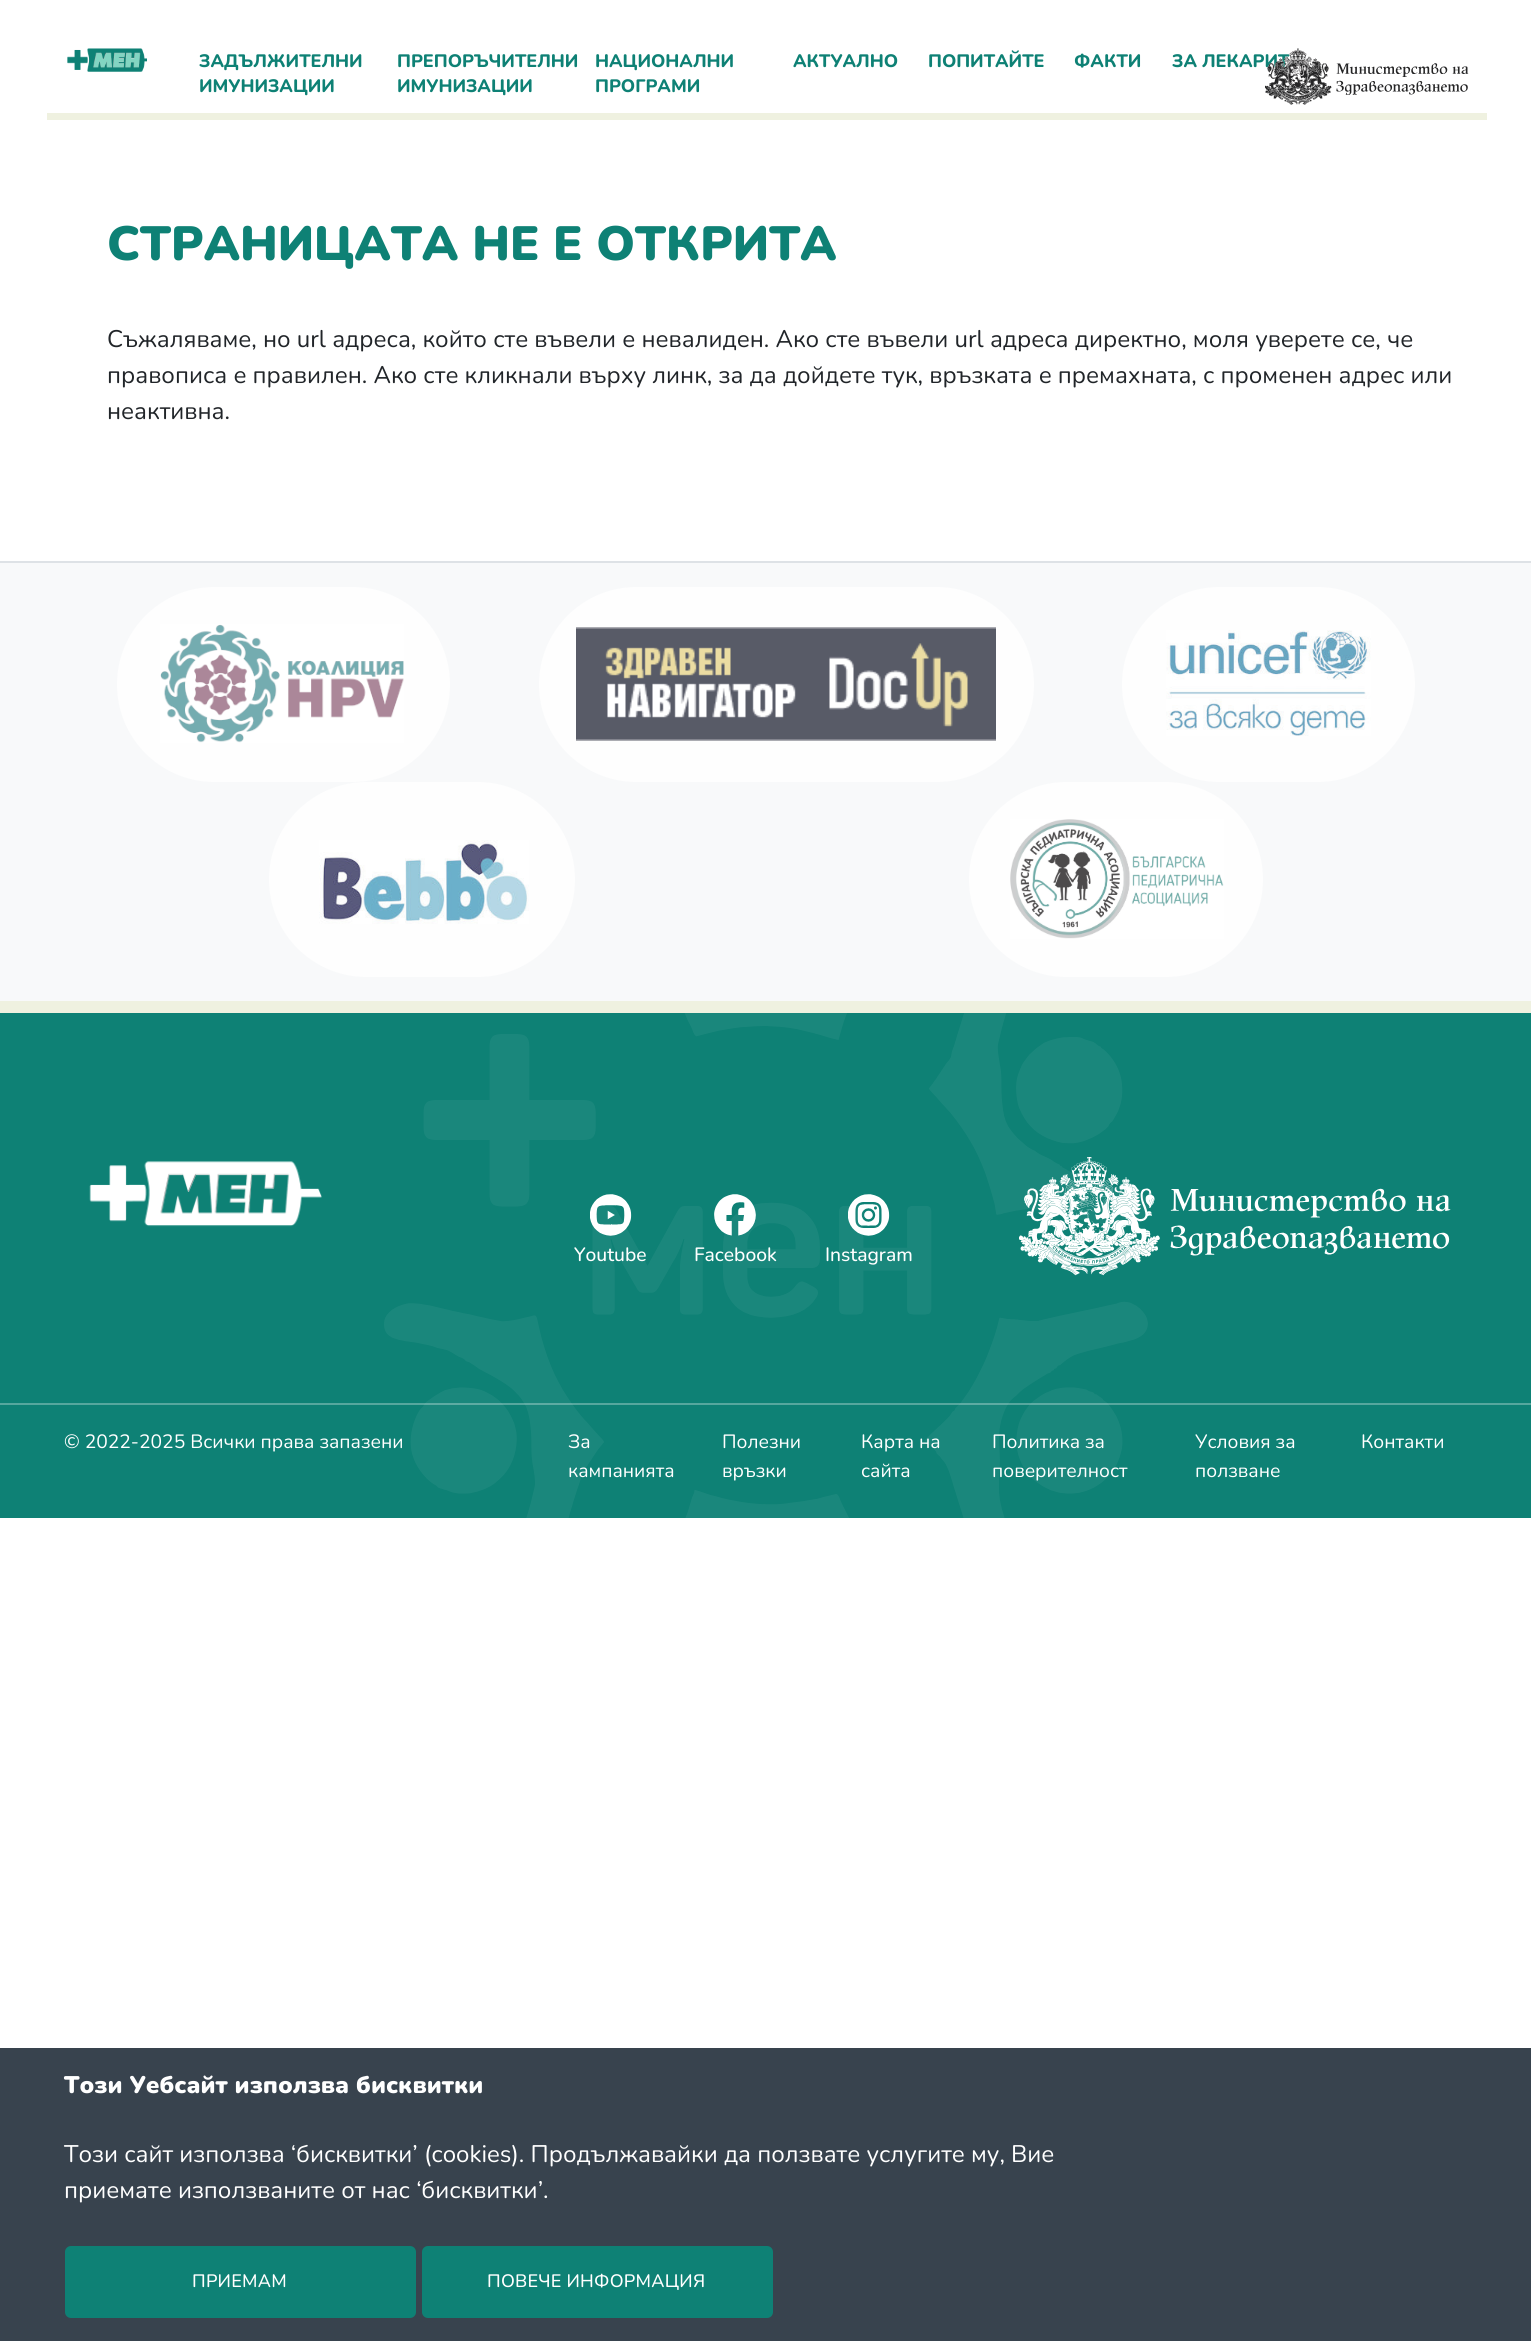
#include <cairo/cairo.h>
#include <math.h>
#include <stddef.h>


static void draw_spaced(cairo_t *cr, double x, double y, const char *s, double letter, double word) {
  cairo_move_to(cr, x, y);
  while (*s) {
    char ch[5] = {0};
    int n = 0;
    do ch[n++] = *s++; while ((*s & 0xC0) == 0x80);
    cairo_show_text(cr, ch);
    cairo_rel_move_to(cr, letter + word * (*ch == ' '), 0);
  }
}

static void rounded_rect(cairo_t *cr, double x, double y, double w, double h, double r) {
  cairo_new_sub_path(cr);
  cairo_arc(cr, x + w - r, y + h - r, r, 0, M_PI / 2);
  cairo_arc(cr, x + r, y + h - r, r, M_PI / 2, M_PI);
  cairo_arc(cr, x + r, y + r, r, M_PI, 1.5 * M_PI);
  cairo_arc(cr, x + w - r, y + r, r, 1.5 * M_PI, 2 * M_PI);
  cairo_close_path(cr);
}

static void draw_image(cairo_t *cr, const char *path, double x, double y, double w, double h) {
  cairo_surface_t *image = cairo_image_surface_create_from_png(path);
  cairo_save(cr);
  cairo_set_source_surface(cr, image, x, y);
  cairo_rectangle(cr, x, y, w, h);
  cairo_fill(cr);
  cairo_restore(cr);
  cairo_surface_destroy(image);
}

static void draw(cairo_t *cr) {
  cairo_set_source_rgb(cr, 1, 1, 1);
  cairo_paint(cr);
  draw_image(cr, "images/1.png", 67, 48, 80, 24);
  cairo_set_source_rgb(cr, 239 / 255.0, 241 / 255.0, 224 / 255.0);
  cairo_rectangle(cr, 47, 113, 1440, 7);
  cairo_fill(cr);
  cairo_set_source_rgb(cr, 248 / 255.0, 249 / 255.0, 250 / 255.0);
  cairo_rectangle(cr, 0, 563, 1531, 438);
  cairo_fill(cr);
  cairo_set_source_rgb(cr, 222 / 255.0, 226 / 255.0, 230 / 255.0);
  cairo_rectangle(cr, 0, 561, 1531, 2);
  cairo_fill(cr);
  cairo_set_source_rgb(cr, 254 / 255.0, 254 / 255.0, 254 / 255.0);
  rounded_rect(cr, 117, 587, 333, 195, 97.5);
  cairo_fill(cr);
  draw_image(cr, "images/3.png", 160, 624, 244, 119);
  rounded_rect(cr, 539, 587, 495, 195, 97.5);
  cairo_fill(cr);
  draw_image(cr, "images/4.png", 576, 627, 420, 114);
  rounded_rect(cr, 1122, 587, 293, 195, 97.5);
  cairo_fill(cr);
  draw_image(cr, "images/5.png", 1166, 630, 205, 106);
  rounded_rect(cr, 269, 782, 306, 195, 97.5);
  cairo_fill(cr);
  draw_image(cr, "images/6.png", 319, 840, 210, 84);
  rounded_rect(cr, 969, 782, 294, 195, 97.5);
  cairo_fill(cr);
  draw_image(cr, "images/7.png", 1010, 819, 214, 120);
  cairo_set_source_rgb(cr, 14 / 255.0, 129 / 255.0, 117 / 255.0);
  cairo_rectangle(cr, 0, 1013, 1531, 505);
  cairo_fill(cr);
  draw_image(cr, "images/8.png", 384, 1013, 765, 505);
  cairo_set_source_rgb(cr, 239 / 255.0, 241 / 255.0, 224 / 255.0);
  cairo_rectangle(cr, 0, 1001, 1531, 12);
  cairo_fill(cr);
  draw_image(cr, "images/9.png", 89, 1161, 233, 66);
  draw_image(cr, "images/10.png", 1019, 1157, 432, 119);
  draw_image(cr, "images/11.png", 590, 1194, 42, 42);
  draw_image(cr, "images/12.png", 714, 1194, 42, 42);
  draw_image(cr, "images/13.png", 848, 1194, 42, 42);
  cairo_set_source_rgba(cr, 1, 1, 1, 0.3);
  cairo_rectangle(cr, 0, 1403, 1531, 2);
  cairo_fill(cr);
  cairo_set_source_rgb(cr, 56 / 255.0, 67 / 255.0, 78 / 255.0);
  cairo_rectangle(cr, 0, 2048, 1531, 293);
  cairo_fill(cr);
  cairo_set_source_rgb(cr, 14 / 255.0, 129 / 255.0, 117 / 255.0);
  rounded_rect(cr, 65, 2246, 351, 72, 6);
  cairo_fill(cr);
  rounded_rect(cr, 422, 2246, 351, 72, 6);
  cairo_fill(cr);
  cairo_select_font_face(cr, "Nunito ExtraBold", CAIRO_FONT_SLANT_NORMAL, CAIRO_FONT_WEIGHT_NORMAL);
  cairo_set_font_size(cr, 18);
  cairo_move_to(cr, 199, 67);
  cairo_show_text(cr, "ЗАДЪЛЖИТЕЛНИ");
  cairo_move_to(cr, 199, 92);
  cairo_show_text(cr, "ИМУНИЗАЦИИ");
  cairo_move_to(cr, 397, 67);
  cairo_show_text(cr, "ПРЕПОРЪЧИТЕЛНИ");
  cairo_move_to(cr, 397, 92);
  cairo_show_text(cr, "ИМУНИЗАЦИИ");
  cairo_move_to(cr, 595, 67);
  cairo_show_text(cr, "НАЦИОНАЛНИ");
  cairo_move_to(cr, 595, 92);
  cairo_show_text(cr, "ПРОГРАМИ");
  cairo_move_to(cr, 793, 67);
  cairo_show_text(cr, "АКТУАЛНО");
  cairo_move_to(cr, 928, 67);
  cairo_show_text(cr, "ПОПИТАЙТЕ");
  cairo_move_to(cr, 1074, 67);
  cairo_show_text(cr, "ФАКТИ");
  cairo_move_to(cr, 1172, 67);
  cairo_show_text(cr, "ЗА ЛЕКАРИТ");
  draw_image(cr, "images/2.png", 1265, 48, 204, 57);
  cairo_select_font_face(cr, "Nunito Black", CAIRO_FONT_SLANT_NORMAL, CAIRO_FONT_WEIGHT_NORMAL);
  cairo_set_font_size(cr, 48);
  cairo_move_to(cr, 107, 260);
  cairo_show_text(cr, "СТРАНИЦАТА НЕ Е ОТКРИТА");
  cairo_select_font_face(cr, "Nunito", CAIRO_FONT_SLANT_NORMAL, CAIRO_FONT_WEIGHT_NORMAL);
  cairo_set_font_size(cr, 24);
  cairo_set_source_rgb(cr, 33 / 255.0, 37 / 255.0, 41 / 255.0);
  cairo_move_to(cr, 107, 347);
  cairo_show_text(cr, "Съжаляваме, но url адреса, който сте въвели е невалиден. Ако сте въвели url адреса директно, моля уверете се, че");
  cairo_move_to(cr, 107, 383);
  cairo_show_text(cr, "правописа е правилен. Ако сте кликнали върху линк, за да дойдете тук, връзката е премахната, с променен адрес или");
  cairo_move_to(cr, 107, 419);
  cairo_show_text(cr, "неактивна.");
  cairo_select_font_face(cr, "Nunito Medium", CAIRO_FONT_SLANT_NORMAL, CAIRO_FONT_WEIGHT_NORMAL);
  cairo_set_font_size(cr, 19.25);
  cairo_set_source_rgb(cr, 1, 1, 1);
  cairo_move_to(cr, 574, 1261);
  cairo_show_text(cr, "Youtube");
  cairo_move_to(cr, 694, 1261);
  cairo_show_text(cr, "Facebook");
  cairo_move_to(cr, 825, 1261);
  cairo_show_text(cr, "Instagram");
  cairo_select_font_face(cr, "Nunito", CAIRO_FONT_SLANT_NORMAL, CAIRO_FONT_WEIGHT_NORMAL);
  cairo_move_to(cr, 64, 1448);
  cairo_show_text(cr, "© 2022-2025 Всички права запазени");
  cairo_move_to(cr, 568, 1448);
  cairo_show_text(cr, "За");
  cairo_move_to(cr, 568, 1477);
  cairo_show_text(cr, "кампанията");
  cairo_move_to(cr, 722, 1448);
  cairo_show_text(cr, "Полезни");
  cairo_move_to(cr, 722, 1477);
  cairo_show_text(cr, "връзки");
  cairo_move_to(cr, 861, 1448);
  cairo_show_text(cr, "Карта на");
  cairo_move_to(cr, 861, 1477);
  cairo_show_text(cr, "сайта");
  cairo_move_to(cr, 992, 1448);
  cairo_show_text(cr, "Политика за");
  cairo_move_to(cr, 992, 1477);
  cairo_show_text(cr, "поверителност");
  cairo_move_to(cr, 1195, 1448);
  cairo_show_text(cr, "Условия за");
  cairo_move_to(cr, 1195, 1477);
  cairo_show_text(cr, "ползване");
  cairo_move_to(cr, 1361, 1448);
  cairo_show_text(cr, "Контакти");
  cairo_select_font_face(cr, "Nunito Black", CAIRO_FONT_SLANT_NORMAL, CAIRO_FONT_WEIGHT_NORMAL);
  cairo_set_font_size(cr, 24);
  cairo_move_to(cr, 64, 2093);
  cairo_show_text(cr, "Този Уебсайт използва бисквитки");
  cairo_select_font_face(cr, "Nunito", CAIRO_FONT_SLANT_NORMAL, CAIRO_FONT_WEIGHT_NORMAL);
  cairo_move_to(cr, 64, 2162);
  cairo_show_text(cr, "Този сайт използва ‘бисквитки’ (cookies). Продължавайки да ползвате услугите му, Вие");
  cairo_move_to(cr, 64, 2198);
  cairo_show_text(cr, "приемате използваните от нас ‘бисквитки’.");
  cairo_select_font_face(cr, "Nunito Medium", CAIRO_FONT_SLANT_NORMAL, CAIRO_FONT_WEIGHT_NORMAL);
  cairo_set_font_size(cr, 18);
  draw_spaced(cr, 192, 2287, "ПРИЕМАМ", 0.25, 0);
  draw_spaced(cr, 487, 2287, "ПОВЕЧЕ ИНФОРМАЦИЯ", 0.25, 0);
}

int main(void) {
  cairo_surface_t *surface = cairo_image_surface_create(CAIRO_FORMAT_RGB24, 1531, 2341);
  cairo_t *cr = cairo_create(surface);
  cairo_font_options_t *options = cairo_font_options_create();
  cairo_font_options_set_hint_metrics(options, CAIRO_HINT_METRICS_OFF);
  cairo_font_options_set_hint_style(options, CAIRO_HINT_STYLE_NONE);
  cairo_set_font_options(cr, options);
  cairo_set_miter_limit(cr, 4);
  draw(cr);
  cairo_surface_write_to_png(surface, "out.png");
  cairo_font_options_destroy(options);
  cairo_destroy(cr);
  cairo_surface_destroy(surface);
  return 0;
}
